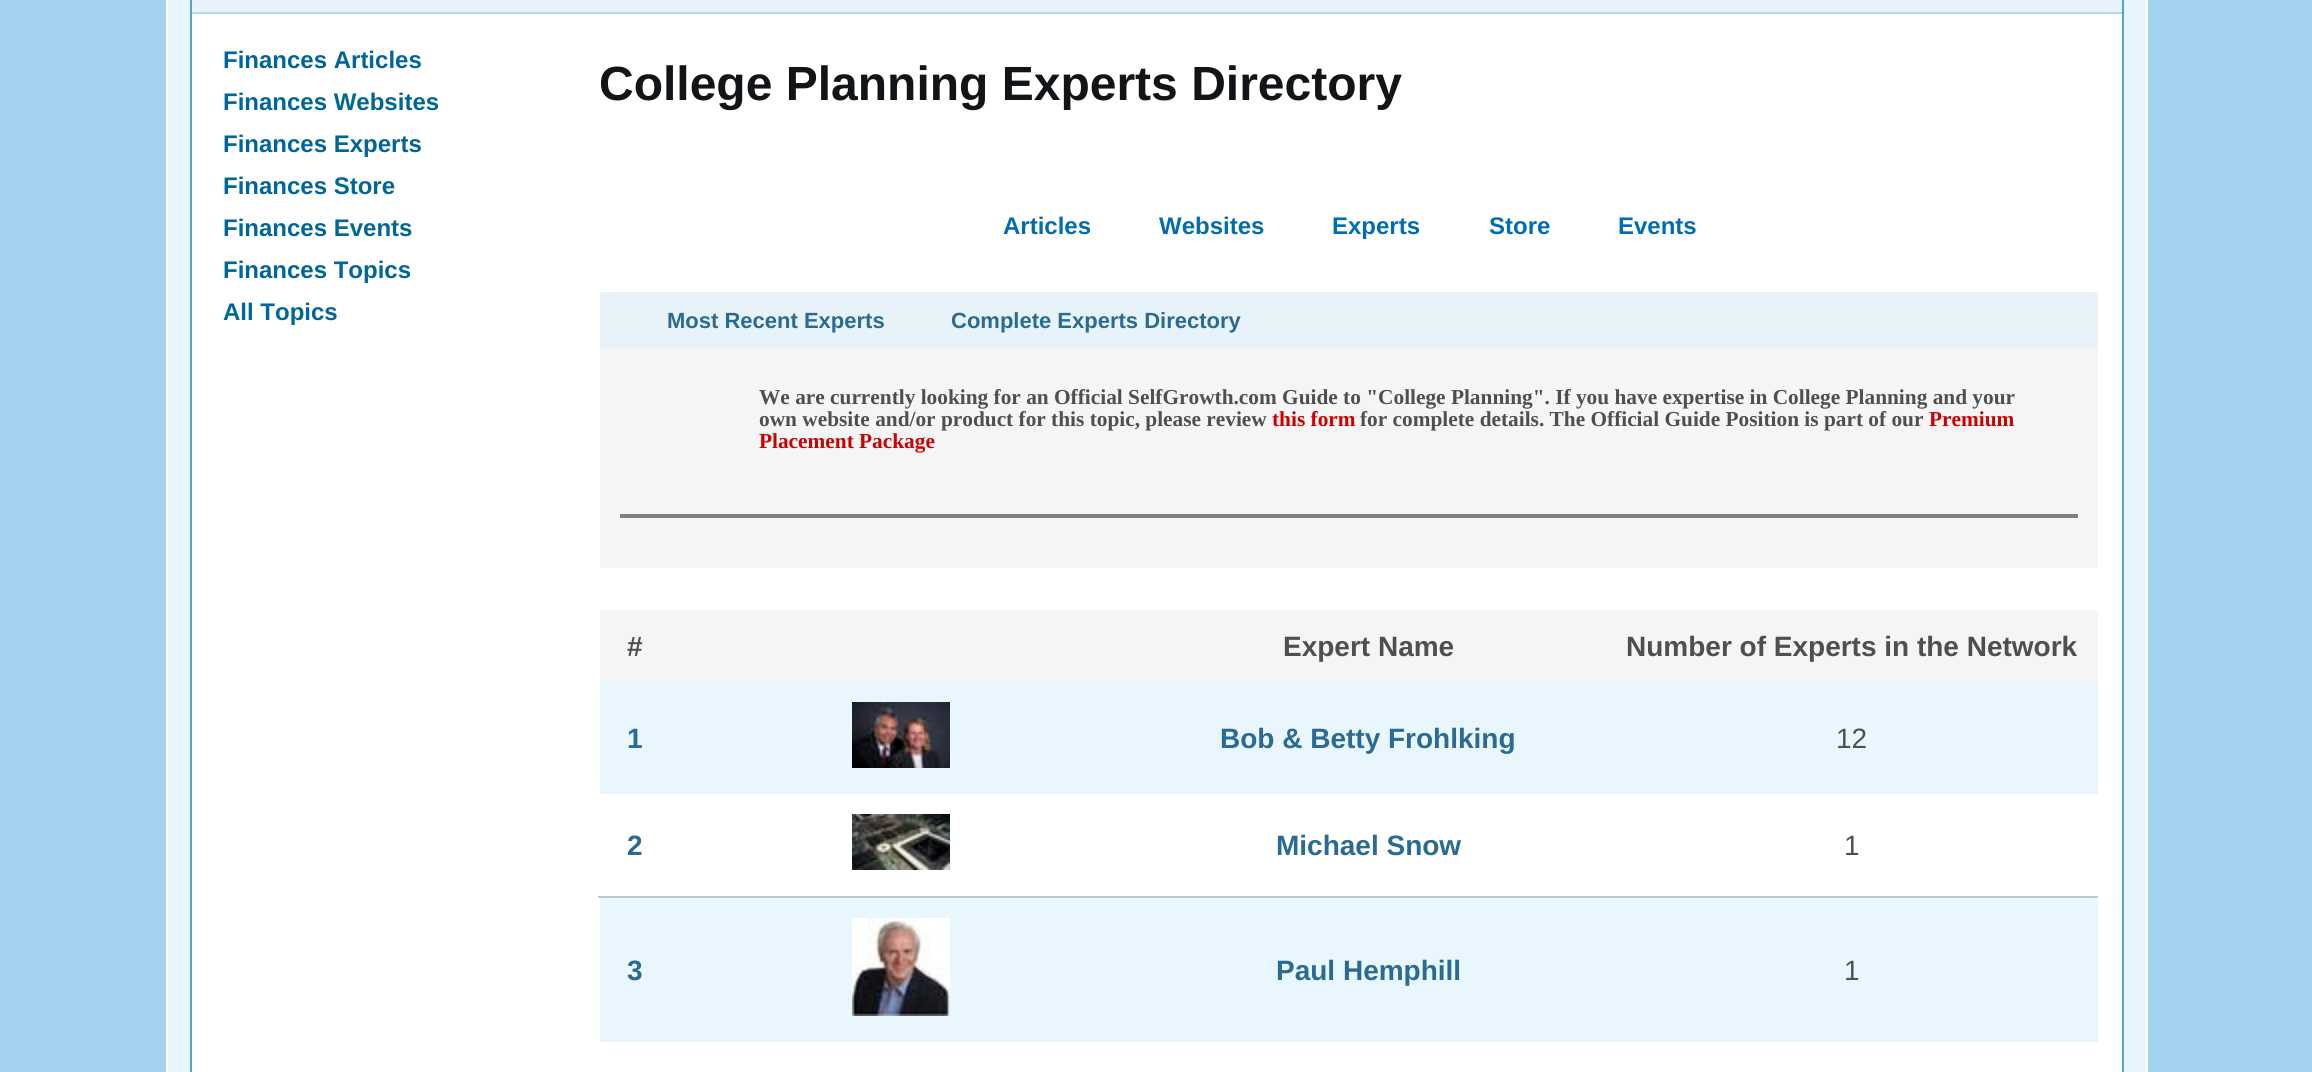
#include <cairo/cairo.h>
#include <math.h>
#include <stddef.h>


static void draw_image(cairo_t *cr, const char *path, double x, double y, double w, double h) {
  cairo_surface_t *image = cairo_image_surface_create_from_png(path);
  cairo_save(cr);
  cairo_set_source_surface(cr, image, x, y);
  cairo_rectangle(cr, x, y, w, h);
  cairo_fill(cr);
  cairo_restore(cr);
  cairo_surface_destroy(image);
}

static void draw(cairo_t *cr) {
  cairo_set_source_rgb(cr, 163 / 255.0, 210 / 255.0, 241 / 255.0);
  cairo_paint(cr);
  cairo_set_source_rgb(cr, 232 / 255.0, 245 / 255.0, 253 / 255.0);
  cairo_rectangle(cr, 167, -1, 1980, 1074);
  cairo_fill_preserve(cr);
  cairo_set_source_rgb(cr, 1, 1, 1);
  cairo_stroke(cr);
  cairo_rectangle(cr, 192, 14, 1930, 1058);
  cairo_fill(cr);
  cairo_rectangle(cr, 191, -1, 1932, 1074);
  cairo_set_source_rgb(cr, 81 / 255.0, 165 / 255.0, 209 / 255.0);
  cairo_stroke(cr);
  cairo_set_source_rgb(cr, 231 / 255.0, 242 / 255.0, 249 / 255.0);
  cairo_rectangle(cr, 192, 0, 1930, 12);
  cairo_fill(cr);
  cairo_set_source_rgb(cr, 175 / 255.0, 217 / 255.0, 235 / 255.0);
  cairo_rectangle(cr, 192, 12, 1930, 2);
  cairo_fill(cr);
  cairo_set_source_rgb(cr, 231 / 255.0, 242 / 255.0, 249 / 255.0);
  cairo_rectangle(cr, 600, 292, 1498, 56);
  cairo_fill(cr);
  cairo_set_source_rgb(cr, 245 / 255.0, 245 / 255.0, 245 / 255.0);
  cairo_rectangle(cr, 600, 348, 1498, 220);
  cairo_fill(cr);
  cairo_set_source_rgb(cr, 128 / 255.0, 128 / 255.0, 128 / 255.0);
  cairo_rectangle(cr, 620, 514, 1458, 4);
  cairo_fill(cr);
  cairo_set_source_rgb(cr, 245 / 255.0, 245 / 255.0, 245 / 255.0);
  cairo_rectangle(cr, 600, 610, 1498, 72);
  cairo_fill(cr);
  cairo_set_source_rgb(cr, 233 / 255.0, 246 / 255.0, 254 / 255.0);
  cairo_rectangle(cr, 600, 682, 1498, 112);
  cairo_fill(cr);
  draw_image(cr, "images/1.png", 852, 702, 98, 66);
  cairo_set_source_rgb(cr, 178 / 255.0, 202 / 255.0, 217 / 255.0);
  cairo_rectangle(cr, 598, 896, 1500, 2);
  cairo_fill(cr);
  draw_image(cr, "images/2.png", 852, 814, 98, 56);
  cairo_set_source_rgb(cr, 233 / 255.0, 246 / 255.0, 254 / 255.0);
  cairo_rectangle(cr, 600, 898, 1498, 144);
  cairo_fill(cr);
  draw_image(cr, "images/3.png", 852, 918, 98, 98);
  cairo_select_font_face(cr, "Liberation Sans", CAIRO_FONT_SLANT_NORMAL, CAIRO_FONT_WEIGHT_BOLD);
  cairo_set_font_size(cr, 24);
  cairo_set_source_rgb(cr, 0, 102 / 255.0, 153 / 255.0);
  cairo_move_to(cr, 223, 68);
  cairo_show_text(cr, "Finances Articles");
  cairo_move_to(cr, 223, 110);
  cairo_show_text(cr, "Finances Websites");
  cairo_move_to(cr, 223, 152);
  cairo_show_text(cr, "Finances Experts");
  cairo_move_to(cr, 223, 194);
  cairo_show_text(cr, "Finances Store");
  cairo_move_to(cr, 223, 236);
  cairo_show_text(cr, "Finances Events");
  cairo_move_to(cr, 223, 278);
  cairo_show_text(cr, "Finances Topics");
  cairo_move_to(cr, 223, 320);
  cairo_show_text(cr, "All Topics");
  cairo_set_font_size(cr, 48);
  cairo_set_source_rgb(cr, 18 / 255.0, 21 / 255.0, 23 / 255.0);
  cairo_move_to(cr, 599, 100);
  cairo_show_text(cr, "College Planning Experts Directory");
  cairo_set_font_size(cr, 24);
  cairo_set_source_rgb(cr, 0, 109 / 255.0, 179 / 255.0);
  cairo_move_to(cr, 1003, 234);
  cairo_show_text(cr, "Articles");
  cairo_move_to(cr, 1159, 234);
  cairo_show_text(cr, "Websites");
  cairo_move_to(cr, 1332, 234);
  cairo_show_text(cr, "Experts");
  cairo_move_to(cr, 1489, 234);
  cairo_show_text(cr, "Store");
  cairo_move_to(cr, 1618, 234);
  cairo_show_text(cr, "Events");
  cairo_set_font_size(cr, 22);
  cairo_set_source_rgb(cr, 42 / 255.0, 107 / 255.0, 147 / 255.0);
  cairo_move_to(cr, 667, 328);
  cairo_show_text(cr, "Most Recent Experts");
  cairo_move_to(cr, 951, 328);
  cairo_show_text(cr, "Complete Experts Directory");
  cairo_select_font_face(cr, "Liberation Serif", CAIRO_FONT_SLANT_NORMAL, CAIRO_FONT_WEIGHT_BOLD);
  cairo_set_font_size(cr, 21.33);
  cairo_set_source_rgb(cr, 79 / 255.0, 79 / 255.0, 79 / 255.0);
  cairo_move_to(cr, 759, 404);
  cairo_show_text(cr, "We are currently looking for an Official SelfGrowth.com Guide to \"College Planning\". If you have expertise in College Planning and your");
  cairo_move_to(cr, 759, 426);
  cairo_show_text(cr, "own website and/or product for this topic, please review");
  cairo_set_source_rgb(cr, 204 / 255.0, 0, 0);
  cairo_move_to(cr, 1272, 426);
  cairo_show_text(cr, "this form");
  cairo_set_source_rgb(cr, 79 / 255.0, 79 / 255.0, 79 / 255.0);
  cairo_move_to(cr, 1360, 426);
  cairo_show_text(cr, "for complete details. The Official Guide Position is part of our");
  cairo_set_source_rgb(cr, 204 / 255.0, 0, 0);
  cairo_move_to(cr, 1929, 426);
  cairo_show_text(cr, "Premium");
  cairo_move_to(cr, 759, 448);
  cairo_show_text(cr, "Placement Package");
  cairo_select_font_face(cr, "Liberation Sans", CAIRO_FONT_SLANT_NORMAL, CAIRO_FONT_WEIGHT_BOLD);
  cairo_set_font_size(cr, 28);
  cairo_set_source_rgb(cr, 79 / 255.0, 79 / 255.0, 79 / 255.0);
  cairo_move_to(cr, 627, 656);
  cairo_show_text(cr, "#");
  cairo_move_to(cr, 1283, 656);
  cairo_show_text(cr, "Expert Name");
  cairo_move_to(cr, 1626, 656);
  cairo_show_text(cr, "Number of Experts in the Network");
  cairo_set_source_rgb(cr, 42 / 255.0, 107 / 255.0, 147 / 255.0);
  cairo_move_to(cr, 627, 748);
  cairo_show_text(cr, "1");
  cairo_move_to(cr, 1220, 748);
  cairo_show_text(cr, "Bob & Betty Frohlking");
  cairo_select_font_face(cr, "Liberation Sans", CAIRO_FONT_SLANT_NORMAL, CAIRO_FONT_WEIGHT_NORMAL);
  cairo_set_source_rgb(cr, 79 / 255.0, 79 / 255.0, 79 / 255.0);
  cairo_move_to(cr, 1836, 748);
  cairo_show_text(cr, "12");
  cairo_select_font_face(cr, "Liberation Sans", CAIRO_FONT_SLANT_NORMAL, CAIRO_FONT_WEIGHT_BOLD);
  cairo_set_source_rgb(cr, 42 / 255.0, 107 / 255.0, 147 / 255.0);
  cairo_move_to(cr, 627, 855);
  cairo_show_text(cr, "2");
  cairo_move_to(cr, 1276, 855);
  cairo_show_text(cr, "Michael Snow");
  cairo_select_font_face(cr, "Liberation Sans", CAIRO_FONT_SLANT_NORMAL, CAIRO_FONT_WEIGHT_NORMAL);
  cairo_set_source_rgb(cr, 79 / 255.0, 79 / 255.0, 79 / 255.0);
  cairo_move_to(cr, 1844, 855);
  cairo_show_text(cr, "1");
  cairo_select_font_face(cr, "Liberation Sans", CAIRO_FONT_SLANT_NORMAL, CAIRO_FONT_WEIGHT_BOLD);
  cairo_set_source_rgb(cr, 42 / 255.0, 107 / 255.0, 147 / 255.0);
  cairo_move_to(cr, 627, 980);
  cairo_show_text(cr, "3");
  cairo_move_to(cr, 1276, 980);
  cairo_show_text(cr, "Paul Hemphill");
  cairo_select_font_face(cr, "Liberation Sans", CAIRO_FONT_SLANT_NORMAL, CAIRO_FONT_WEIGHT_NORMAL);
  cairo_set_source_rgb(cr, 79 / 255.0, 79 / 255.0, 79 / 255.0);
  cairo_move_to(cr, 1844, 980);
  cairo_show_text(cr, "1");
}

int main(void) {
  cairo_surface_t *surface = cairo_image_surface_create(CAIRO_FORMAT_RGB24, 2312, 1072);
  cairo_t *cr = cairo_create(surface);
  cairo_font_options_t *options = cairo_font_options_create();
  cairo_font_options_set_hint_metrics(options, CAIRO_HINT_METRICS_OFF);
  cairo_font_options_set_hint_style(options, CAIRO_HINT_STYLE_NONE);
  cairo_set_font_options(cr, options);
  cairo_set_miter_limit(cr, 4);
  draw(cr);
  cairo_surface_write_to_png(surface, "out.png");
  cairo_font_options_destroy(options);
  cairo_destroy(cr);
  cairo_surface_destroy(surface);
  return 0;
}
